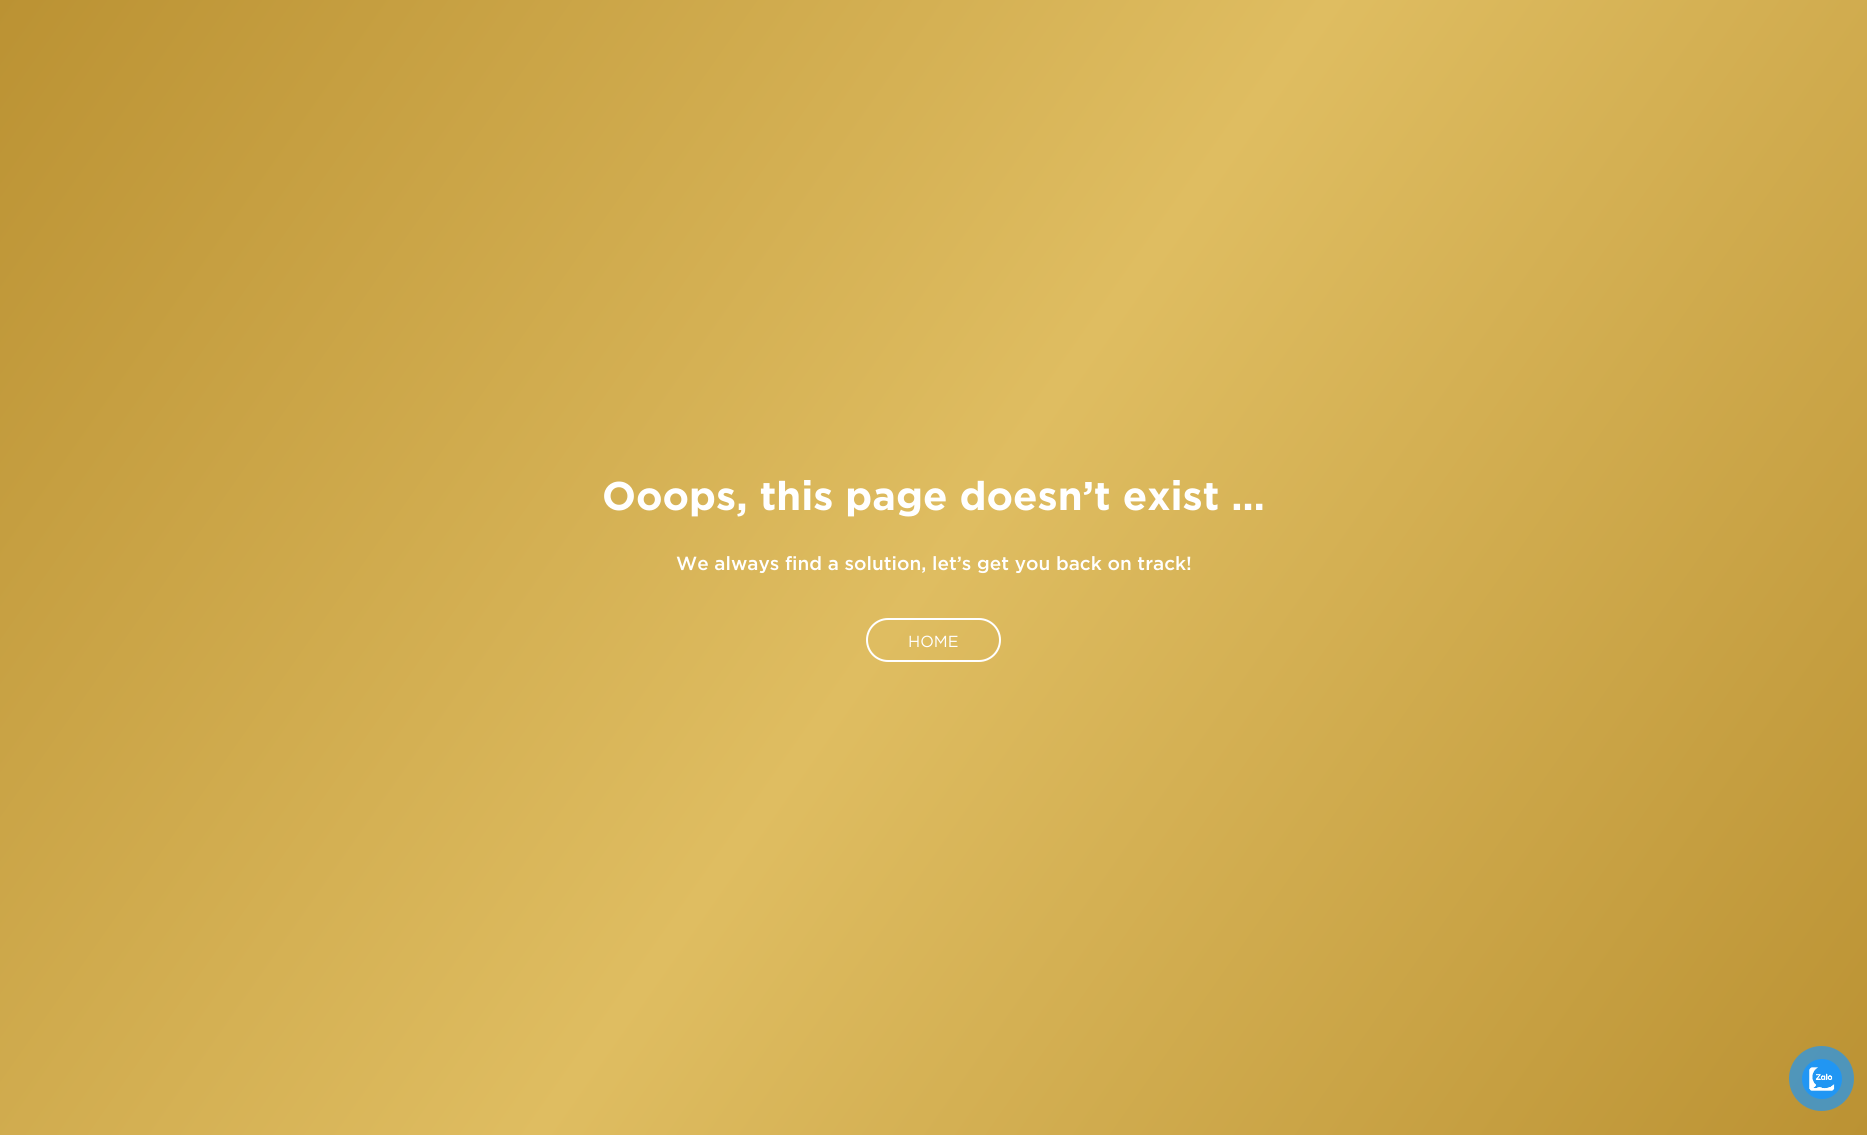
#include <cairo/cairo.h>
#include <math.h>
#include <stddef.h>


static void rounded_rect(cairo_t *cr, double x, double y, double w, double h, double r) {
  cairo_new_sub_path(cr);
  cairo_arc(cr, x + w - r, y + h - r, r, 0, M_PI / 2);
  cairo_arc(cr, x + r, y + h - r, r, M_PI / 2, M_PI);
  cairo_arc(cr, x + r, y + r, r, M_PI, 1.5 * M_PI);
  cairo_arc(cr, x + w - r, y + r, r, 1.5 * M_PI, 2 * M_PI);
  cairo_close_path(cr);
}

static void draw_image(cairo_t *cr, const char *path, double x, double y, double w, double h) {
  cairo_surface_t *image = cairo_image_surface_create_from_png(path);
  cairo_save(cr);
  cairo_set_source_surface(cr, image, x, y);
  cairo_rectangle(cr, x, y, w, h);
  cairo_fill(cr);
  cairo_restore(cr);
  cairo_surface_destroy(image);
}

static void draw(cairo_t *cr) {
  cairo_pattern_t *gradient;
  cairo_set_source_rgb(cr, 1, 1, 1);
  cairo_paint(cr);
  gradient = cairo_pattern_create_linear(40, -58, 1827, 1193);
  cairo_pattern_add_color_stop_rgba(gradient, 0, 187 / 255.0, 146 / 255.0, 51 / 255.0, 1);
  cairo_pattern_add_color_stop_rgba(gradient, 0.5, 223 / 255.0, 189 / 255.0, 97 / 255.0, 1);
  cairo_pattern_add_color_stop_rgba(gradient, 1, 187 / 255.0, 146 / 255.0, 51 / 255.0, 1);
  cairo_set_source(cr, gradient);
  cairo_pattern_destroy(gradient);
  cairo_rectangle(cr, 0, 0, 1867, 1135);
  cairo_fill(cr);
  rounded_rect(cr, 867, 619, 133, 42, 21);
  cairo_set_source_rgb(cr, 1, 1, 1);
  cairo_stroke(cr);
  cairo_set_source_rgba(cr, 33 / 255.0, 150 / 255.0, 243 / 255.0, 0.7);
  cairo_arc(cr, 1821.5, 1078.5, 32.5, 0, 2 * M_PI);
  cairo_fill(cr);
  cairo_set_source_rgb(cr, 33 / 255.0, 150 / 255.0, 243 / 255.0);
  cairo_arc(cr, 1822, 1079, 20, 0, 2 * M_PI);
  cairo_fill(cr);
  draw_image(cr, "images/1.png", 1809, 1067, 26, 24);
  cairo_select_font_face(cr, "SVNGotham", CAIRO_FONT_SLANT_NORMAL, CAIRO_FONT_WEIGHT_BOLD);
  cairo_set_font_size(cr, 40);
  cairo_set_source_rgb(cr, 1, 1, 1);
  cairo_move_to(cr, 602, 510);
  cairo_show_text(cr, "Ooops, this page doesn’t exist …");
  cairo_select_font_face(cr, "SVNGotham", CAIRO_FONT_SLANT_NORMAL, CAIRO_FONT_WEIGHT_NORMAL);
  cairo_set_font_size(cr, 19);
  cairo_move_to(cr, 676, 570);
  cairo_show_text(cr, "We always find a solution, let’s get you back on track!");
  cairo_select_font_face(cr, "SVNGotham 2", CAIRO_FONT_SLANT_NORMAL, CAIRO_FONT_WEIGHT_NORMAL);
  cairo_set_font_size(cr, 16);
  cairo_move_to(cr, 908, 647);
  cairo_show_text(cr, "HOME");
}

int main(void) {
  cairo_surface_t *surface = cairo_image_surface_create(CAIRO_FORMAT_RGB24, 1867, 1135);
  cairo_t *cr = cairo_create(surface);
  cairo_font_options_t *options = cairo_font_options_create();
  cairo_font_options_set_hint_metrics(options, CAIRO_HINT_METRICS_OFF);
  cairo_font_options_set_hint_style(options, CAIRO_HINT_STYLE_NONE);
  cairo_set_font_options(cr, options);
  cairo_set_miter_limit(cr, 4);
  draw(cr);
  cairo_surface_write_to_png(surface, "out.png");
  cairo_font_options_destroy(options);
  cairo_destroy(cr);
  cairo_surface_destroy(surface);
  return 0;
}
